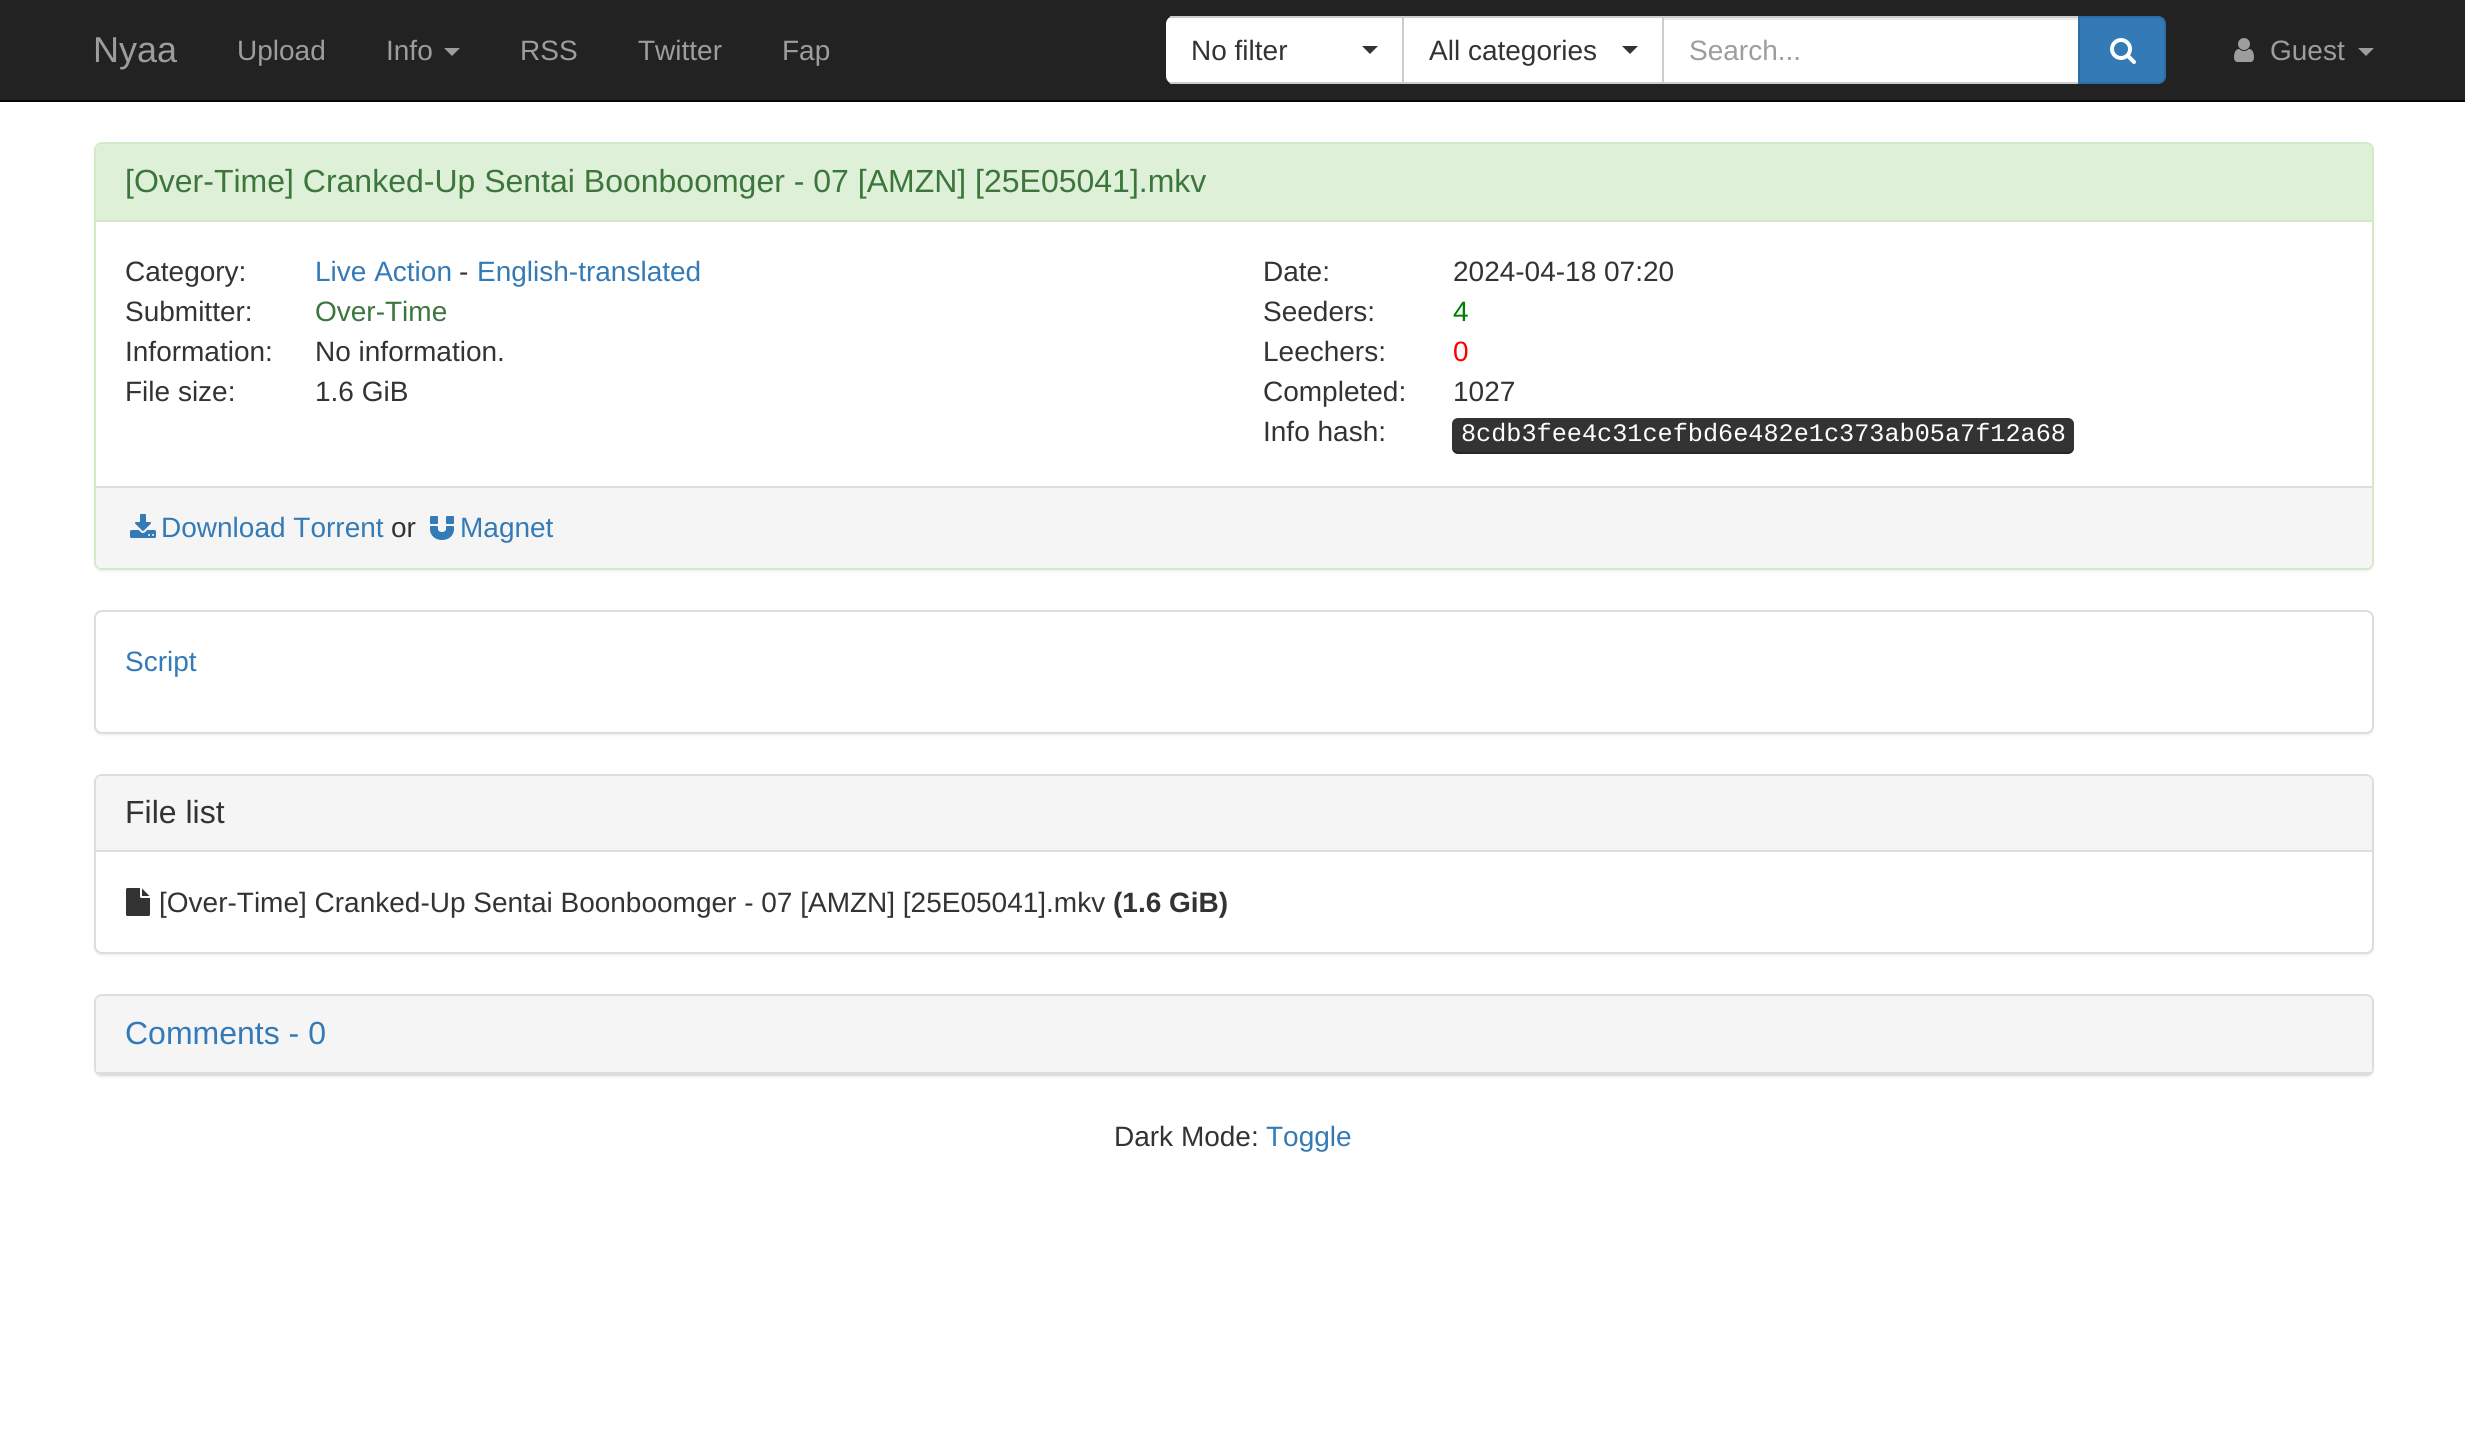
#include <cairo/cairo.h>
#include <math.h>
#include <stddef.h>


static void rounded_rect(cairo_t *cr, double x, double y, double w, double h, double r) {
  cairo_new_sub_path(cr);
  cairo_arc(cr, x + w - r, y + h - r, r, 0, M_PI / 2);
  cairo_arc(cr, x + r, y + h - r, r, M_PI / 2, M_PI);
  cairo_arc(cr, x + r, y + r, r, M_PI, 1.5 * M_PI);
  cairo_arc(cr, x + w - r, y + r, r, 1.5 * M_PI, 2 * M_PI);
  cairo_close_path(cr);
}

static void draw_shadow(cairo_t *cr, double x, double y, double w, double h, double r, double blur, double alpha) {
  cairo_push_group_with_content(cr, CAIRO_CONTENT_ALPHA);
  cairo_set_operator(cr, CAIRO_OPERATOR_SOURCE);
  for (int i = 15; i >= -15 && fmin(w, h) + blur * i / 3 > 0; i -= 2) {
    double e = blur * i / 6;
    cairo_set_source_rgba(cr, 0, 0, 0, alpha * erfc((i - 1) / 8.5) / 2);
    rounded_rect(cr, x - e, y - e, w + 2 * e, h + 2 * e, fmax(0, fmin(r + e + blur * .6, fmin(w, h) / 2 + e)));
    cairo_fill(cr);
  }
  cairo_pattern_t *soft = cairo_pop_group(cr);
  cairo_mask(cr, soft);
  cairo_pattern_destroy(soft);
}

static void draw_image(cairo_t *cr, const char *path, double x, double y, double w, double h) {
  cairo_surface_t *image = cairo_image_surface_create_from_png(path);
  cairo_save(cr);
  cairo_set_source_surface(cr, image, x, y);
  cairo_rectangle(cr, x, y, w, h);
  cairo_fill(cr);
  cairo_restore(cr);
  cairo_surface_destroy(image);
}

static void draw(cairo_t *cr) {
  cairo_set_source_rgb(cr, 1, 1, 1);
  cairo_paint(cr);
  cairo_set_source_rgb(cr, 34 / 255.0, 34 / 255.0, 34 / 255.0);
  cairo_rectangle(cr, 0, 0, 2465, 100);
  cairo_fill(cr);
  cairo_set_source_rgb(cr, 8 / 255.0, 8 / 255.0, 8 / 255.0);
  cairo_rectangle(cr, 0, 100, 2465, 2);
  cairo_fill(cr);
  cairo_set_source_rgb(cr, 157 / 255.0, 157 / 255.0, 157 / 255.0);
  cairo_new_path(cr);
  cairo_move_to(cr, 444, 48);
  cairo_line_to(cr, 460, 48);
  cairo_line_to(cr, 452, 56);
  cairo_close_path(cr);
  cairo_fill(cr);
  cairo_set_source_rgb(cr, 1, 1, 1);
  cairo_new_path(cr);
  cairo_move_to(cr, 1174, 16);
  cairo_line_to(cr, 1404, 16);
  cairo_line_to(cr, 1404, 84);
  cairo_line_to(cr, 1174, 84);
  cairo_curve_to(cr, 1169.5, 84, 1166, 80.5, 1166, 76);
  cairo_line_to(cr, 1166, 24);
  cairo_curve_to(cr, 1166, 19.5, 1169.5, 16, 1174, 16);
  cairo_close_path(cr);
  cairo_fill(cr);
  cairo_set_source_rgb(cr, 204 / 255.0, 204 / 255.0, 204 / 255.0);
  cairo_rectangle(cr, 1170, 16, 910, 2);
  cairo_fill(cr);
  cairo_rectangle(cr, 1402, 16, 2, 68);
  cairo_fill(cr);
  cairo_rectangle(cr, 1170, 82, 234, 2);
  cairo_fill(cr);
  cairo_set_source_rgb(cr, 51 / 255.0, 51 / 255.0, 51 / 255.0);
  cairo_new_path(cr);
  cairo_move_to(cr, 1362, 46);
  cairo_line_to(cr, 1378, 46);
  cairo_line_to(cr, 1370, 54);
  cairo_close_path(cr);
  cairo_fill(cr);
  cairo_set_source_rgb(cr, 1, 1, 1);
  cairo_rectangle(cr, 1404, 18, 258, 64);
  cairo_fill(cr);
  cairo_set_source_rgb(cr, 204 / 255.0, 204 / 255.0, 204 / 255.0);
  cairo_rectangle(cr, 1662, 16, 2, 68);
  cairo_fill(cr);
  cairo_rectangle(cr, 1404, 82, 676, 2);
  cairo_fill(cr);
  cairo_set_source_rgb(cr, 51 / 255.0, 51 / 255.0, 51 / 255.0);
  cairo_new_path(cr);
  cairo_move_to(cr, 1622, 46);
  cairo_line_to(cr, 1638, 46);
  cairo_line_to(cr, 1630, 54);
  cairo_close_path(cr);
  cairo_fill(cr);
  cairo_set_source_rgb(cr, 1, 1, 1);
  cairo_rectangle(cr, 1664, 20, 414, 62);
  cairo_fill(cr);
  cairo_set_source_rgb(cr, 236 / 255.0, 236 / 255.0, 236 / 255.0);
  cairo_rectangle(cr, 1664, 18, 414, 2);
  cairo_fill(cr);
  cairo_set_source_rgb(cr, 51 / 255.0, 122 / 255.0, 183 / 255.0);
  cairo_new_path(cr);
  cairo_move_to(cr, 2079, 17);
  cairo_line_to(cr, 2158, 17);
  cairo_curve_to(cr, 2162, 17, 2165, 20, 2165, 24);
  cairo_line_to(cr, 2165, 76);
  cairo_curve_to(cr, 2165, 80, 2162, 83, 2158, 83);
  cairo_line_to(cr, 2079, 83);
  cairo_close_path(cr);
  cairo_fill_preserve(cr);
  cairo_set_source_rgb(cr, 46 / 255.0, 109 / 255.0, 164 / 255.0);
  cairo_stroke(cr);
  draw_image(cr, "images/1.png", 2110, 38, 26, 26);
  draw_image(cr, "images/2.png", 2234, 38, 20, 24);
  cairo_set_source_rgb(cr, 157 / 255.0, 157 / 255.0, 157 / 255.0);
  cairo_new_path(cr);
  cairo_move_to(cr, 2358, 48);
  cairo_line_to(cr, 2374, 48);
  cairo_line_to(cr, 2366, 56);
  cairo_close_path(cr);
  cairo_fill(cr);
  cairo_set_source_rgb(cr, 0, 0, 0);
  draw_shadow(cr, 94, 144, 2280, 428, 8, 1, 0.05);
  cairo_set_source_rgb(cr, 1, 1, 1);
  rounded_rect(cr, 95, 143, 2278, 426, 7);
  cairo_fill_preserve(cr);
  cairo_set_source_rgb(cr, 214 / 255.0, 233 / 255.0, 198 / 255.0);
  cairo_stroke(cr);
  cairo_set_source_rgb(cr, 223 / 255.0, 240 / 255.0, 216 / 255.0);
  cairo_new_path(cr);
  cairo_move_to(cr, 102, 144);
  cairo_line_to(cr, 2366, 144);
  cairo_curve_to(cr, 2369.5, 144, 2372, 146.5, 2372, 150);
  cairo_line_to(cr, 2372, 222);
  cairo_line_to(cr, 96, 222);
  cairo_line_to(cr, 96, 150);
  cairo_curve_to(cr, 96, 146.5, 98.5, 144, 102, 144);
  cairo_close_path(cr);
  cairo_fill(cr);
  cairo_set_source_rgb(cr, 214 / 255.0, 233 / 255.0, 198 / 255.0);
  cairo_rectangle(cr, 96, 220, 2276, 2);
  cairo_fill(cr);
  cairo_set_source_rgb(cr, 51 / 255.0, 51 / 255.0, 51 / 255.0);
  rounded_rect(cr, 1452, 418, 622, 36, 6);
  cairo_fill(cr);
  cairo_set_source_rgba(cr, 0, 0, 0, 0.25);
  cairo_new_path(cr);
  cairo_move_to(cr, 1452, 446);
  cairo_line_to(cr, 1452, 448);
  cairo_curve_to(cr, 1452, 451, 1455, 454, 1458, 454);
  cairo_line_to(cr, 2068, 454);
  cairo_curve_to(cr, 2071, 454, 2074, 451, 2074, 448);
  cairo_line_to(cr, 2074, 446);
  cairo_curve_to(cr, 2074, 449, 2071, 452, 2068, 452);
  cairo_line_to(cr, 1458, 452);
  cairo_curve_to(cr, 1455, 452, 1452, 449, 1452, 446);
  cairo_close_path(cr);
  cairo_fill(cr);
  cairo_set_source_rgb(cr, 245 / 255.0, 245 / 255.0, 245 / 255.0);
  cairo_new_path(cr);
  cairo_move_to(cr, 96, 486);
  cairo_line_to(cr, 2372, 486);
  cairo_line_to(cr, 2372, 562);
  cairo_curve_to(cr, 2372, 565.5, 2369.5, 568, 2366, 568);
  cairo_line_to(cr, 102, 568);
  cairo_curve_to(cr, 98.5, 568, 96, 565.5, 96, 562);
  cairo_close_path(cr);
  cairo_fill(cr);
  cairo_set_source_rgb(cr, 221 / 255.0, 221 / 255.0, 221 / 255.0);
  cairo_rectangle(cr, 96, 486, 2276, 2);
  cairo_fill(cr);
  draw_image(cr, "images/3.png", 130, 514, 26, 24);
  draw_image(cr, "images/4.png", 430, 516, 24, 24);
  cairo_set_source_rgb(cr, 0, 0, 0);
  draw_shadow(cr, 94, 612, 2280, 124, 8, 1, 0.05);
  cairo_set_source_rgb(cr, 1, 1, 1);
  rounded_rect(cr, 95, 611, 2278, 122, 7);
  cairo_fill_preserve(cr);
  cairo_set_source_rgb(cr, 221 / 255.0, 221 / 255.0, 221 / 255.0);
  cairo_stroke(cr);
  cairo_set_source_rgb(cr, 0, 0, 0);
  draw_shadow(cr, 94, 776, 2280, 180, 8, 1, 0.05);
  cairo_set_source_rgb(cr, 1, 1, 1);
  rounded_rect(cr, 95, 775, 2278, 178, 7);
  cairo_fill_preserve(cr);
  cairo_set_source_rgb(cr, 221 / 255.0, 221 / 255.0, 221 / 255.0);
  cairo_stroke(cr);
  cairo_set_source_rgb(cr, 245 / 255.0, 245 / 255.0, 245 / 255.0);
  cairo_new_path(cr);
  cairo_move_to(cr, 102, 776);
  cairo_line_to(cr, 2366, 776);
  cairo_curve_to(cr, 2369.5, 776, 2372, 778.5, 2372, 782);
  cairo_line_to(cr, 2372, 852);
  cairo_line_to(cr, 96, 852);
  cairo_line_to(cr, 96, 782);
  cairo_curve_to(cr, 96, 778.5, 98.5, 776, 102, 776);
  cairo_close_path(cr);
  cairo_fill(cr);
  cairo_set_source_rgb(cr, 221 / 255.0, 221 / 255.0, 221 / 255.0);
  cairo_rectangle(cr, 96, 850, 2276, 2);
  cairo_fill(cr);
  draw_image(cr, "images/5.png", 126, 888, 24, 28);
  cairo_set_source_rgb(cr, 0, 0, 0);
  draw_shadow(cr, 94, 996, 2280, 82, 8, 1, 0.05);
  rounded_rect(cr, 95, 995, 2278, 80, 7);
  cairo_set_source_rgb(cr, 221 / 255.0, 221 / 255.0, 221 / 255.0);
  cairo_stroke(cr);
  cairo_set_source_rgb(cr, 245 / 255.0, 245 / 255.0, 245 / 255.0);
  cairo_new_path(cr);
  cairo_move_to(cr, 102, 996);
  cairo_line_to(cr, 2366, 996);
  cairo_curve_to(cr, 2369.5, 996, 2372, 998.5, 2372, 1002);
  cairo_line_to(cr, 2372, 1074);
  cairo_line_to(cr, 96, 1074);
  cairo_line_to(cr, 96, 1002);
  cairo_curve_to(cr, 96, 998.5, 98.5, 996, 102, 996);
  cairo_close_path(cr);
  cairo_fill(cr);
  cairo_set_source_rgb(cr, 221 / 255.0, 221 / 255.0, 221 / 255.0);
  cairo_rectangle(cr, 96, 1072, 2276, 2);
  cairo_fill(cr);
  cairo_select_font_face(cr, "Liberation Sans", CAIRO_FONT_SLANT_NORMAL, CAIRO_FONT_WEIGHT_NORMAL);
  cairo_set_font_size(cr, 36);
  cairo_set_source_rgb(cr, 157 / 255.0, 157 / 255.0, 157 / 255.0);
  cairo_move_to(cr, 93, 62);
  cairo_show_text(cr, "Nyaa");
  cairo_set_font_size(cr, 28);
  cairo_move_to(cr, 237, 60);
  cairo_show_text(cr, "Upload");
  cairo_move_to(cr, 386, 60);
  cairo_show_text(cr, "Info");
  cairo_move_to(cr, 520, 60);
  cairo_show_text(cr, "RSS");
  cairo_move_to(cr, 638, 60);
  cairo_show_text(cr, "Twitter");
  cairo_move_to(cr, 782, 60);
  cairo_show_text(cr, "Fap");
  cairo_set_source_rgb(cr, 51 / 255.0, 51 / 255.0, 51 / 255.0);
  cairo_move_to(cr, 1191, 60);
  cairo_show_text(cr, "No filter");
  cairo_move_to(cr, 1429, 60);
  cairo_show_text(cr, "All categories");
  cairo_set_source_rgb(cr, 157 / 255.0, 157 / 255.0, 157 / 255.0);
  cairo_move_to(cr, 1689, 60);
  cairo_show_text(cr, "Search...");
  cairo_move_to(cr, 2270, 60);
  cairo_show_text(cr, "Guest");
  cairo_set_font_size(cr, 32);
  cairo_set_source_rgb(cr, 60 / 255.0, 118 / 255.0, 61 / 255.0);
  cairo_move_to(cr, 125, 192);
  cairo_show_text(cr, "[Over-Time] Cranked-Up Sentai Boonboomger - 07 [AMZN] [25E05041].mkv");
  cairo_set_font_size(cr, 28);
  cairo_set_source_rgb(cr, 51 / 255.0, 51 / 255.0, 51 / 255.0);
  cairo_move_to(cr, 125, 281);
  cairo_show_text(cr, "Category:");
  cairo_set_source_rgb(cr, 51 / 255.0, 122 / 255.0, 183 / 255.0);
  cairo_move_to(cr, 315, 281);
  cairo_show_text(cr, "Live Action");
  cairo_set_source_rgb(cr, 51 / 255.0, 51 / 255.0, 51 / 255.0);
  cairo_move_to(cr, 459, 281);
  cairo_show_text(cr, "-");
  cairo_set_source_rgb(cr, 51 / 255.0, 122 / 255.0, 183 / 255.0);
  cairo_move_to(cr, 477, 281);
  cairo_show_text(cr, "English-translated");
  cairo_set_source_rgb(cr, 51 / 255.0, 51 / 255.0, 51 / 255.0);
  cairo_move_to(cr, 1263, 281);
  cairo_show_text(cr, "Date:");
  cairo_move_to(cr, 1453, 281);
  cairo_show_text(cr, "2024-04-18 07:20");
  cairo_move_to(cr, 125, 321);
  cairo_show_text(cr, "Submitter:");
  cairo_set_source_rgb(cr, 60 / 255.0, 118 / 255.0, 61 / 255.0);
  cairo_move_to(cr, 315, 321);
  cairo_show_text(cr, "Over-Time");
  cairo_set_source_rgb(cr, 51 / 255.0, 51 / 255.0, 51 / 255.0);
  cairo_move_to(cr, 1263, 321);
  cairo_show_text(cr, "Seeders:");
  cairo_set_source_rgb(cr, 0, 128 / 255.0, 0);
  cairo_move_to(cr, 1453, 321);
  cairo_show_text(cr, "4");
  cairo_set_source_rgb(cr, 51 / 255.0, 51 / 255.0, 51 / 255.0);
  cairo_move_to(cr, 125, 361);
  cairo_show_text(cr, "Information:");
  cairo_move_to(cr, 315, 361);
  cairo_show_text(cr, "No information.");
  cairo_move_to(cr, 1263, 361);
  cairo_show_text(cr, "Leechers:");
  cairo_set_source_rgb(cr, 1, 0, 0);
  cairo_move_to(cr, 1453, 361);
  cairo_show_text(cr, "0");
  cairo_set_source_rgb(cr, 51 / 255.0, 51 / 255.0, 51 / 255.0);
  cairo_move_to(cr, 125, 401);
  cairo_show_text(cr, "File size:");
  cairo_move_to(cr, 315, 401);
  cairo_show_text(cr, "1.6 GiB");
  cairo_move_to(cr, 1263, 401);
  cairo_show_text(cr, "Completed:");
  cairo_move_to(cr, 1453, 401);
  cairo_show_text(cr, "1027");
  cairo_move_to(cr, 1263, 441);
  cairo_show_text(cr, "Info hash:");
  cairo_select_font_face(cr, "Liberation Mono", CAIRO_FONT_SLANT_NORMAL, CAIRO_FONT_WEIGHT_NORMAL);
  cairo_set_font_size(cr, 25.2);
  cairo_set_source_rgb(cr, 1, 1, 1);
  cairo_move_to(cr, 1461, 441);
  cairo_show_text(cr, "8cdb3fee4c31cefbd6e482e1c373ab05a7f12a68");
  cairo_select_font_face(cr, "Liberation Sans", CAIRO_FONT_SLANT_NORMAL, CAIRO_FONT_WEIGHT_NORMAL);
  cairo_set_font_size(cr, 28);
  cairo_set_source_rgb(cr, 51 / 255.0, 122 / 255.0, 183 / 255.0);
  cairo_move_to(cr, 161, 537);
  cairo_show_text(cr, "Download Torrent");
  cairo_set_source_rgb(cr, 51 / 255.0, 51 / 255.0, 51 / 255.0);
  cairo_move_to(cr, 391, 537);
  cairo_show_text(cr, "or");
  cairo_set_source_rgb(cr, 51 / 255.0, 122 / 255.0, 183 / 255.0);
  cairo_move_to(cr, 460, 537);
  cairo_show_text(cr, "Magnet");
  cairo_move_to(cr, 125, 671);
  cairo_show_text(cr, "Script");
  cairo_set_font_size(cr, 32);
  cairo_set_source_rgb(cr, 51 / 255.0, 51 / 255.0, 51 / 255.0);
  cairo_move_to(cr, 125, 823);
  cairo_show_text(cr, "File list");
  cairo_set_font_size(cr, 28);
  cairo_move_to(cr, 159, 912);
  cairo_show_text(cr, "[Over-Time] Cranked-Up Sentai Boonboomger - 07 [AMZN] [25E05041].mkv");
  cairo_select_font_face(cr, "Liberation Sans", CAIRO_FONT_SLANT_NORMAL, CAIRO_FONT_WEIGHT_BOLD);
  cairo_move_to(cr, 1113, 912);
  cairo_show_text(cr, "(1.6 GiB)");
  cairo_select_font_face(cr, "Liberation Sans", CAIRO_FONT_SLANT_NORMAL, CAIRO_FONT_WEIGHT_NORMAL);
  cairo_set_font_size(cr, 32);
  cairo_set_source_rgb(cr, 51 / 255.0, 122 / 255.0, 183 / 255.0);
  cairo_move_to(cr, 125, 1044);
  cairo_show_text(cr, "Comments - 0");
  cairo_set_font_size(cr, 28);
  cairo_set_source_rgb(cr, 51 / 255.0, 51 / 255.0, 51 / 255.0);
  cairo_move_to(cr, 1114, 1146);
  cairo_show_text(cr, "Dark Mode:");
  cairo_set_source_rgb(cr, 51 / 255.0, 122 / 255.0, 183 / 255.0);
  cairo_move_to(cr, 1266, 1146);
  cairo_show_text(cr, "Toggle");
}

int main(void) {
  cairo_surface_t *surface = cairo_image_surface_create(CAIRO_FORMAT_RGB24, 2465, 1429);
  cairo_t *cr = cairo_create(surface);
  cairo_font_options_t *options = cairo_font_options_create();
  cairo_font_options_set_hint_metrics(options, CAIRO_HINT_METRICS_OFF);
  cairo_font_options_set_hint_style(options, CAIRO_HINT_STYLE_NONE);
  cairo_set_font_options(cr, options);
  cairo_set_miter_limit(cr, 4);
  draw(cr);
  cairo_surface_write_to_png(surface, "out.png");
  cairo_font_options_destroy(options);
  cairo_destroy(cr);
  cairo_surface_destroy(surface);
  return 0;
}
